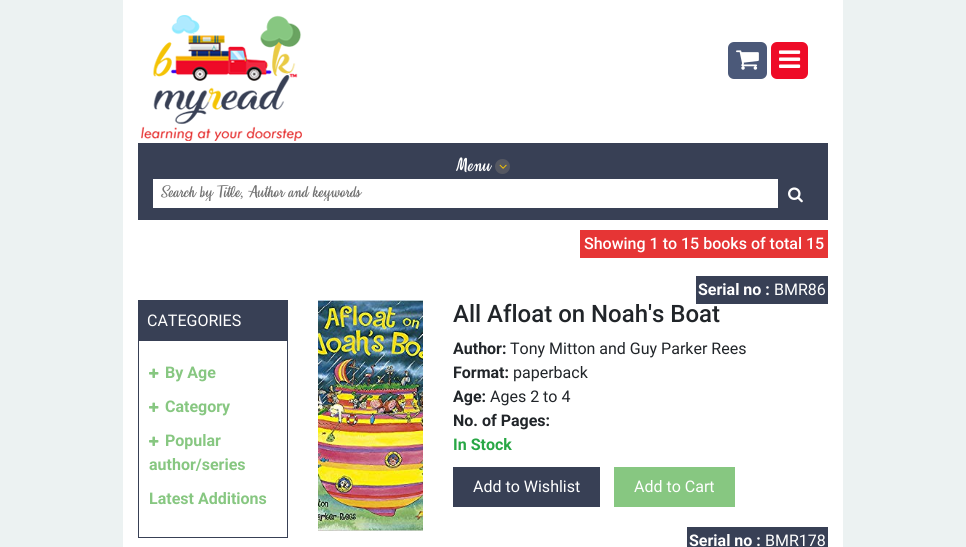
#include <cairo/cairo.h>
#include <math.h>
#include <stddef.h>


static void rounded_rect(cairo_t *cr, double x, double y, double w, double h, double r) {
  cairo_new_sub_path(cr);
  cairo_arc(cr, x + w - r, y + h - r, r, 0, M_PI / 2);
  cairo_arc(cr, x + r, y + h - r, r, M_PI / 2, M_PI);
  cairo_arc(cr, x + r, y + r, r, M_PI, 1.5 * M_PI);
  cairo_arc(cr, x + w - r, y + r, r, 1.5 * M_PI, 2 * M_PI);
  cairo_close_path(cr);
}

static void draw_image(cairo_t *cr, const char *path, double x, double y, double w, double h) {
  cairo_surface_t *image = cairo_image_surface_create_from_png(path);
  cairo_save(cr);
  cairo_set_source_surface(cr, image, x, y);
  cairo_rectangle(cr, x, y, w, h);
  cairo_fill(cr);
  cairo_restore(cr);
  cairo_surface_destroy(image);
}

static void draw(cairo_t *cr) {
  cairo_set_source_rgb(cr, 236 / 255.0, 242 / 255.0, 242 / 255.0);
  cairo_paint(cr);
  cairo_set_source_rgb(cr, 1, 1, 1);
  cairo_rectangle(cr, 123, 0, 720, 547);
  cairo_fill(cr);
  draw_image(cr, "images/1.png", 141, 15, 161, 126);
  cairo_set_source_rgb(cr, 75 / 255.0, 89 / 255.0, 121 / 255.0);
  rounded_rect(cr, 728, 42, 39, 37, 6);
  cairo_fill(cr);
  draw_image(cr, "images/2.png", 736, 50, 23, 20);
  cairo_set_source_rgb(cr, 238 / 255.0, 11 / 255.0, 39 / 255.0);
  rounded_rect(cr, 771, 42, 37, 37, 6);
  cairo_fill(cr);
  draw_image(cr, "images/3.png", 779, 50, 22, 18);
  cairo_set_source_rgb(cr, 56 / 255.0, 64 / 255.0, 85 / 255.0);
  cairo_rectangle(cr, 138, 143, 690, 77);
  cairo_fill(cr);
  cairo_set_source_rgb(cr, 85 / 255.0, 88 / 255.0, 98 / 255.0);
  cairo_arc(cr, 502.5, 166.5, 7.5, 0, 2 * M_PI);
  cairo_fill(cr);
  draw_image(cr, "images/4.png", 499, 164, 8, 5);
  cairo_set_source_rgb(cr, 1, 1, 1);
  cairo_rectangle(cr, 153, 179, 625, 29);
  cairo_fill(cr);
  draw_image(cr, "images/5.png", 788, 187, 15, 16);
  cairo_rectangle(cr, 138.5, 300.5, 149, 237);
  cairo_set_source_rgb(cr, 56 / 255.0, 64 / 255.0, 85 / 255.0);
  cairo_set_line_width(cr, 1);
  cairo_stroke(cr);
  cairo_rectangle(cr, 139, 301, 148, 40);
  cairo_fill(cr);
  draw_image(cr, "images/6.png", 149, 368, 10, 10);
  draw_image(cr, "images/6.png", 149, 402, 10, 10);
  draw_image(cr, "images/6.png", 149, 436, 10, 10);
  cairo_set_source_rgb(cr, 230 / 255.0, 53 / 255.0, 53 / 255.0);
  cairo_rectangle(cr, 580, 230, 248, 28);
  cairo_fill(cr);
  draw_image(cr, "images/7.png", 318, 300, 105, 231);
  cairo_set_source_rgb(cr, 56 / 255.0, 64 / 255.0, 85 / 255.0);
  cairo_rectangle(cr, 453, 467, 147, 40);
  cairo_fill(cr);
  cairo_set_source_rgb(cr, 135 / 255.0, 199 / 255.0, 129 / 255.0);
  cairo_rectangle(cr, 614, 467, 121, 40);
  cairo_fill(cr);
  cairo_set_source_rgb(cr, 56 / 255.0, 64 / 255.0, 85 / 255.0);
  cairo_rectangle(cr, 687, 527, 141, 20);
  cairo_fill(cr);
  cairo_select_font_face(cr, "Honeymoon", CAIRO_FONT_SLANT_NORMAL, CAIRO_FONT_WEIGHT_NORMAL);
  cairo_set_font_size(cr, 16);
  cairo_set_source_rgb(cr, 1, 1, 1);
  cairo_move_to(cr, 456, 171);
  cairo_show_text(cr, "Menu");
  cairo_save(cr);
  cairo_rectangle(cr, 161, 185, 644, 16);
  cairo_clip(cr);
  cairo_set_font_size(cr, 14);
  cairo_set_source_rgb(cr, 117 / 255.0, 117 / 255.0, 117 / 255.0);
  cairo_move_to(cr, 161, 197);
  cairo_show_text(cr, "Search by Title");
  cairo_move_to(cr, 248, 197);
  cairo_show_text(cr, "Author and keywords");
  cairo_restore(cr);
  cairo_select_font_face(cr, "Liberation Serif", CAIRO_FONT_SLANT_NORMAL, CAIRO_FONT_WEIGHT_NORMAL);
  cairo_set_font_size(cr, 14);
  cairo_set_source_rgb(cr, 117 / 255.0, 117 / 255.0, 117 / 255.0);
  cairo_move_to(cr, 240, 197);
  cairo_show_text(cr, ",");
  cairo_select_font_face(cr, "Roboto", CAIRO_FONT_SLANT_NORMAL, CAIRO_FONT_WEIGHT_NORMAL);
  cairo_set_font_size(cr, 16);
  cairo_set_source_rgb(cr, 1, 1, 1);
  cairo_move_to(cr, 147, 326);
  cairo_show_text(cr, "CATEGORIES");
  cairo_select_font_face(cr, "Roboto", CAIRO_FONT_SLANT_NORMAL, CAIRO_FONT_WEIGHT_BOLD);
  cairo_set_source_rgb(cr, 135 / 255.0, 199 / 255.0, 129 / 255.0);
  cairo_move_to(cr, 165, 378);
  cairo_show_text(cr, "By Age");
  cairo_move_to(cr, 165, 412);
  cairo_show_text(cr, "Category");
  cairo_move_to(cr, 165, 446);
  cairo_show_text(cr, "Popular");
  cairo_move_to(cr, 149, 470);
  cairo_show_text(cr, "author/series");
  cairo_move_to(cr, 149, 504);
  cairo_show_text(cr, "Latest Additions");
  cairo_select_font_face(cr, "Roboto Medium", CAIRO_FONT_SLANT_NORMAL, CAIRO_FONT_WEIGHT_NORMAL);
  cairo_set_source_rgb(cr, 1, 1, 1);
  cairo_move_to(cr, 584, 249);
  cairo_show_text(cr, "Showing 1 to 15 books of total 15");
  cairo_set_font_size(cr, 24);
  cairo_set_source_rgb(cr, 33 / 255.0, 37 / 255.0, 41 / 255.0);
  cairo_move_to(cr, 453, 322);
  cairo_show_text(cr, "All Afloat on Noah's Boat");
  cairo_set_source_rgb(cr, 56 / 255.0, 64 / 255.0, 85 / 255.0);
  cairo_rectangle(cr, 696, 276, 132, 28);
  cairo_fill(cr);
  cairo_select_font_face(cr, "Roboto", CAIRO_FONT_SLANT_NORMAL, CAIRO_FONT_WEIGHT_NORMAL);
  cairo_set_font_size(cr, 16);
  cairo_set_source_rgb(cr, 1, 1, 1);
  cairo_move_to(cr, 774, 295);
  cairo_show_text(cr, "BMR86");
  cairo_select_font_face(cr, "Roboto", CAIRO_FONT_SLANT_NORMAL, CAIRO_FONT_WEIGHT_BOLD);
  cairo_move_to(cr, 698, 295);
  cairo_show_text(cr, "Serial no :");
  cairo_set_source_rgb(cr, 33 / 255.0, 37 / 255.0, 41 / 255.0);
  cairo_move_to(cr, 453, 354);
  cairo_show_text(cr, "Author:");
  cairo_select_font_face(cr, "Roboto", CAIRO_FONT_SLANT_NORMAL, CAIRO_FONT_WEIGHT_NORMAL);
  cairo_move_to(cr, 510, 354);
  cairo_show_text(cr, "Tony Mitton and Guy Parker Rees");
  cairo_select_font_face(cr, "Roboto", CAIRO_FONT_SLANT_NORMAL, CAIRO_FONT_WEIGHT_BOLD);
  cairo_move_to(cr, 453, 378);
  cairo_show_text(cr, "Format:");
  cairo_select_font_face(cr, "Roboto", CAIRO_FONT_SLANT_NORMAL, CAIRO_FONT_WEIGHT_NORMAL);
  cairo_move_to(cr, 513, 378);
  cairo_show_text(cr, "paperback");
  cairo_select_font_face(cr, "Roboto", CAIRO_FONT_SLANT_NORMAL, CAIRO_FONT_WEIGHT_BOLD);
  cairo_move_to(cr, 453, 402);
  cairo_show_text(cr, "Age:");
  cairo_select_font_face(cr, "Roboto", CAIRO_FONT_SLANT_NORMAL, CAIRO_FONT_WEIGHT_NORMAL);
  cairo_move_to(cr, 490, 402);
  cairo_show_text(cr, "Ages 2 to 4");
  cairo_select_font_face(cr, "Roboto", CAIRO_FONT_SLANT_NORMAL, CAIRO_FONT_WEIGHT_BOLD);
  cairo_move_to(cr, 453, 426);
  cairo_show_text(cr, "No. of Pages:");
  cairo_set_source_rgb(cr, 40 / 255.0, 167 / 255.0, 69 / 255.0);
  cairo_move_to(cr, 453, 450);
  cairo_show_text(cr, "In Stock");
  cairo_select_font_face(cr, "Roboto", CAIRO_FONT_SLANT_NORMAL, CAIRO_FONT_WEIGHT_NORMAL);
  cairo_set_source_rgb(cr, 1, 1, 1);
  cairo_move_to(cr, 473, 492);
  cairo_show_text(cr, "Add to Wishlist");
  cairo_move_to(cr, 634, 492);
  cairo_show_text(cr, "Add to Cart");
  cairo_select_font_face(cr, "Roboto", CAIRO_FONT_SLANT_NORMAL, CAIRO_FONT_WEIGHT_BOLD);
  cairo_move_to(cr, 689, 546);
  cairo_show_text(cr, "Serial no :");
  cairo_select_font_face(cr, "Roboto", CAIRO_FONT_SLANT_NORMAL, CAIRO_FONT_WEIGHT_NORMAL);
  cairo_move_to(cr, 765, 546);
  cairo_show_text(cr, "BMR178");
}

int main(void) {
  cairo_surface_t *surface = cairo_image_surface_create(CAIRO_FORMAT_RGB24, 966, 547);
  cairo_t *cr = cairo_create(surface);
  cairo_font_options_t *options = cairo_font_options_create();
  cairo_font_options_set_hint_metrics(options, CAIRO_HINT_METRICS_OFF);
  cairo_font_options_set_hint_style(options, CAIRO_HINT_STYLE_NONE);
  cairo_set_font_options(cr, options);
  cairo_set_miter_limit(cr, 4);
  draw(cr);
  cairo_surface_write_to_png(surface, "out.png");
  cairo_font_options_destroy(options);
  cairo_destroy(cr);
  cairo_surface_destroy(surface);
  return 0;
}
